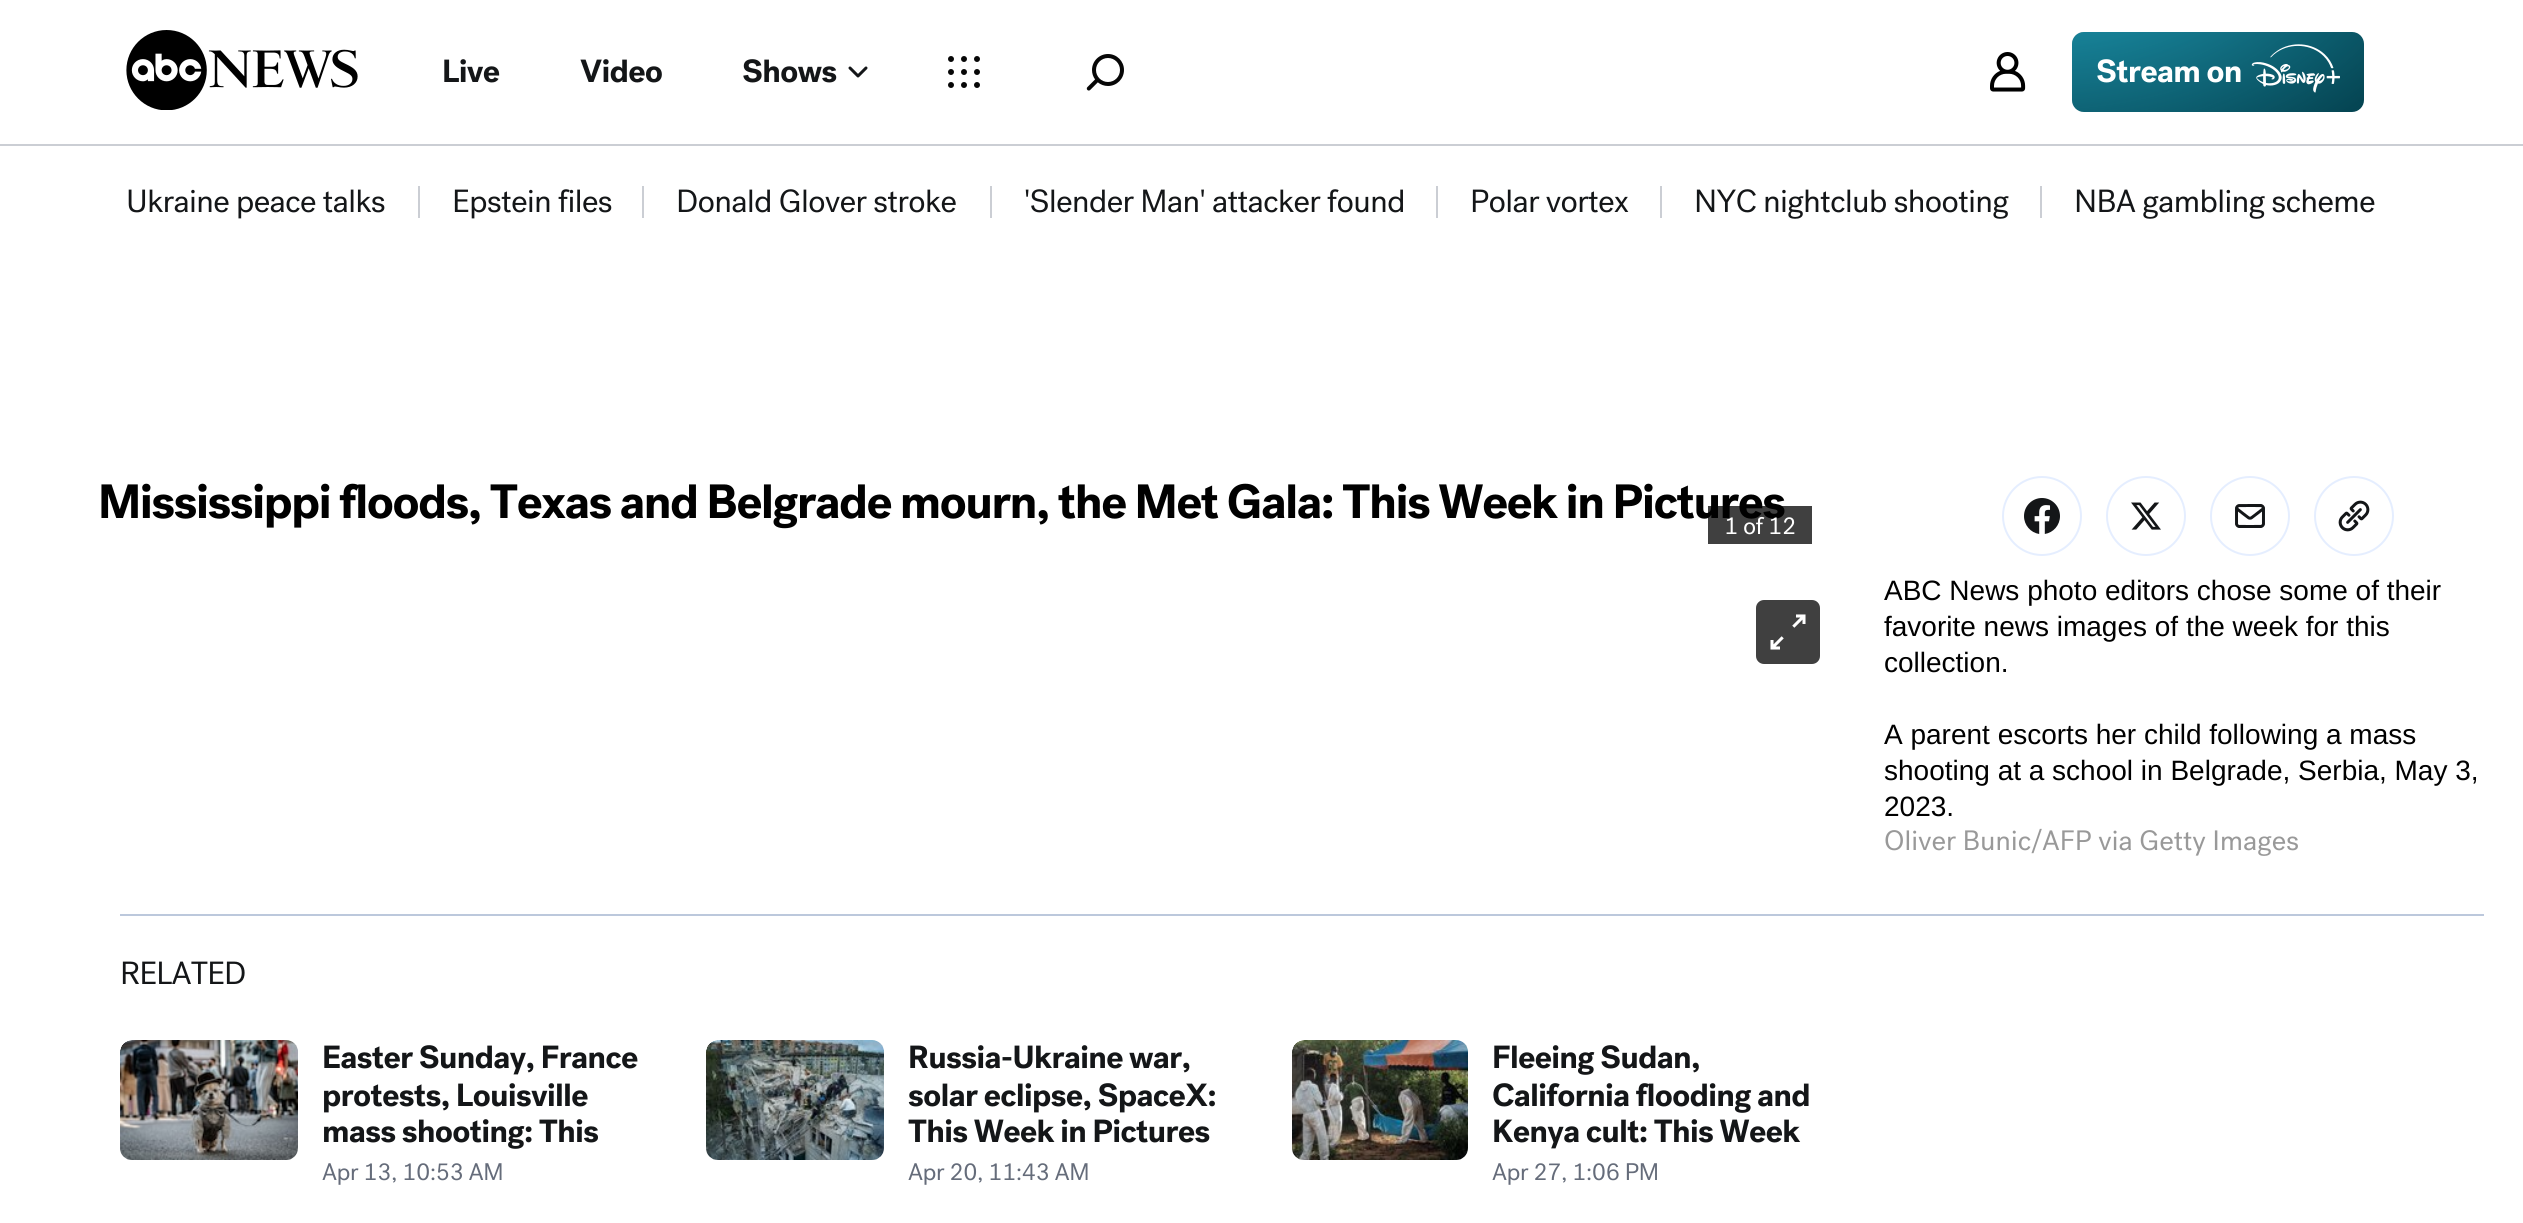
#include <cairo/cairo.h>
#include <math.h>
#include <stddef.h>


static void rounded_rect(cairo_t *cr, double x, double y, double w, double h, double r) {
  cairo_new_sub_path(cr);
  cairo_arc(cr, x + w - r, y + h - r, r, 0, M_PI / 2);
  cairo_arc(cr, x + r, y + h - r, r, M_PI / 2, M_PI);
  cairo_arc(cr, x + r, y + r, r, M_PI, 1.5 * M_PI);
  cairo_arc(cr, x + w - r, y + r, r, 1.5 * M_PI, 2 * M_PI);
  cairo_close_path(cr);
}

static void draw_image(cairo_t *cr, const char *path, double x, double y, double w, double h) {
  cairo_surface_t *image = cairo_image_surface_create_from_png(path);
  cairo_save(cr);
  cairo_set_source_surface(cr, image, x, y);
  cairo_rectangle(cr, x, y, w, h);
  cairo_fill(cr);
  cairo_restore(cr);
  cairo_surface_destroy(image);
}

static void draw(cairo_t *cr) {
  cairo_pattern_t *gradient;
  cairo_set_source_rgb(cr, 1, 1, 1);
  cairo_paint(cr);
  draw_image(cr, "images/1.png", 126, 30, 232, 80);
  draw_image(cr, "images/2.png", 444, 59, 56, 24);
  draw_image(cr, "images/3.png", 580, 59, 82, 24);
  draw_image(cr, "images/4.png", 743, 59, 94, 24);
  draw_image(cr, "images/5.png", 848, 66, 20, 12);
  draw_image(cr, "images/6.png", 948, 56, 32, 32);
  draw_image(cr, "images/7.png", 1086, 54, 38, 37);
  draw_image(cr, "images/8.png", 1990, 52, 36, 40);
  cairo_set_source_rgb(cr, 5 / 255.0, 69 / 255.0, 83 / 255.0);
  rounded_rect(cr, 2072, 32, 292, 80, 12);
  cairo_fill(cr);
  gradient = cairo_pattern_create_radial(0, 0, 0, 0, 0, 1);
  cairo_pattern_set_matrix(gradient, &(cairo_matrix_t){1.0 / 438, 0, 0, 1.0 / 280, -1.0 * 2043 / 438, -1.0 * -88 / 280});
  cairo_pattern_add_color_stop_rgba(gradient, 0, 51 / 255.0, 221 / 255.0, 1, 0.7);
  cairo_pattern_add_color_stop_rgba(gradient, 1, 51 / 255.0, 221 / 255.0, 1, 0);
  cairo_set_source(cr, gradient);
  cairo_pattern_destroy(gradient);
  rounded_rect(cr, 2072, 32, 292, 80, 12);
  cairo_fill(cr);
  draw_image(cr, "images/9.png", 2097, 59, 144, 24);
  draw_image(cr, "images/10.png", 2251, 44, 89, 49);
  cairo_set_source_rgb(cr, 203 / 255.0, 206 / 255.0, 212 / 255.0);
  cairo_rectangle(cr, 0, 144, 2523, 2);
  cairo_fill(cr);
  draw_image(cr, "images/11.png", 128, 189, 257, 30);
  cairo_rectangle(cr, 418, 186, 2, 32);
  cairo_fill(cr);
  draw_image(cr, "images/12.png", 454, 189, 158, 30);
  cairo_rectangle(cr, 642, 186, 2, 32);
  cairo_fill(cr);
  draw_image(cr, "images/13.png", 678, 189, 278, 24);
  cairo_rectangle(cr, 990, 186, 2, 32);
  cairo_fill(cr);
  draw_image(cr, "images/14.png", 1025, 189, 378, 24);
  cairo_rectangle(cr, 1436, 186, 2, 32);
  cairo_fill(cr);
  draw_image(cr, "images/15.png", 1472, 189, 157, 24);
  cairo_rectangle(cr, 1660, 186, 2, 32);
  cairo_fill(cr);
  draw_image(cr, "images/16.png", 1696, 189, 313, 30);
  cairo_rectangle(cr, 2040, 186, 2, 32);
  cairo_fill(cr);
  draw_image(cr, "images/17.png", 2076, 189, 299, 30);
  draw_image(cr, "images/18.png", 101, 483, 1684, 46);
  cairo_set_source_rgba(cr, 0, 0, 0, 0.75);
  cairo_rectangle(cr, 1708, 506, 104, 38);
  cairo_fill(cr);
  draw_image(cr, "images/19.png", 1726, 516, 69, 19);
  cairo_set_source_rgb(cr, 64 / 255.0, 64 / 255.0, 64 / 255.0);
  rounded_rect(cr, 1756, 600, 64, 64, 8);
  cairo_fill(cr);
  draw_image(cr, "images/20.png", 1770, 614, 36, 36);
  cairo_arc(cr, 2042, 516, 39, 0, 2 * M_PI);
  cairo_set_source_rgb(cr, 229 / 255.0, 238 / 255.0, 1);
  cairo_stroke(cr);
  draw_image(cr, "images/21.png", 2024, 498, 36, 36);
  cairo_arc(cr, 2146, 516, 39, 0, 2 * M_PI);
  cairo_stroke(cr);
  draw_image(cr, "images/22.png", 2131, 502, 30, 28);
  cairo_arc(cr, 2250, 516, 39, 0, 2 * M_PI);
  cairo_stroke(cr);
  draw_image(cr, "images/23.png", 2235, 504, 30, 24);
  cairo_arc(cr, 2354, 516, 39, 0, 2 * M_PI);
  cairo_stroke(cr);
  draw_image(cr, "images/24.png", 2338, 500, 32, 32);
  draw_image(cr, "images/25.png", 1885, 828, 413, 28);
  cairo_set_source_rgb(cr, 188 / 255.0, 200 / 255.0, 220 / 255.0);
  cairo_rectangle(cr, 120, 914, 2364, 2);
  cairo_fill(cr);
  draw_image(cr, "images/26.png", 122, 961, 123, 23);
  draw_image(cr, "images/27.png", 120, 1040, 178, 120);
  draw_image(cr, "images/28.png", 324, 1045, 314, 30);
  draw_image(cr, "images/29.png", 324, 1083, 264, 30);
  draw_image(cr, "images/30.png", 324, 1119, 274, 30);
  draw_image(cr, "images/31.png", 322, 1163, 180, 22);
  draw_image(cr, "images/32.png", 706, 1040, 178, 120);
  draw_image(cr, "images/33.png", 910, 1045, 280, 28);
  draw_image(cr, "images/34.png", 908, 1083, 307, 30);
  draw_image(cr, "images/35.png", 908, 1119, 302, 24);
  draw_image(cr, "images/36.png", 908, 1163, 180, 22);
  draw_image(cr, "images/37.png", 1292, 1040, 176, 120);
  draw_image(cr, "images/38.png", 1494, 1045, 205, 30);
  draw_image(cr, "images/39.png", 1493, 1083, 316, 30);
  draw_image(cr, "images/40.png", 1494, 1119, 307, 30);
  draw_image(cr, "images/41.png", 1492, 1163, 165, 22);
  cairo_select_font_face(cr, "Liberation Sans", CAIRO_FONT_SLANT_NORMAL, CAIRO_FONT_WEIGHT_NORMAL);
  cairo_set_font_size(cr, 28);
  cairo_set_source_rgb(cr, 0, 0, 0);
  cairo_move_to(cr, 1884, 600);
  cairo_show_text(cr, "ABC News photo editors chose some of their");
  cairo_move_to(cr, 1884, 636);
  cairo_show_text(cr, "favorite news images of the week for this");
  cairo_move_to(cr, 1884, 672);
  cairo_show_text(cr, "collection.");
  cairo_move_to(cr, 1884, 744);
  cairo_show_text(cr, "A parent escorts her child following a mass");
  cairo_move_to(cr, 1884, 780);
  cairo_show_text(cr, "shooting at a school in Belgrade, Serbia, May 3,");
  cairo_move_to(cr, 1884, 816);
  cairo_show_text(cr, "2023.");
}

int main(void) {
  cairo_surface_t *surface = cairo_image_surface_create(CAIRO_FORMAT_RGB24, 2523, 1223);
  cairo_t *cr = cairo_create(surface);
  cairo_font_options_t *options = cairo_font_options_create();
  cairo_font_options_set_hint_metrics(options, CAIRO_HINT_METRICS_OFF);
  cairo_font_options_set_hint_style(options, CAIRO_HINT_STYLE_NONE);
  cairo_set_font_options(cr, options);
  cairo_set_miter_limit(cr, 4);
  draw(cr);
  cairo_surface_write_to_png(surface, "out.png");
  cairo_font_options_destroy(options);
  cairo_destroy(cr);
  cairo_surface_destroy(surface);
  return 0;
}
